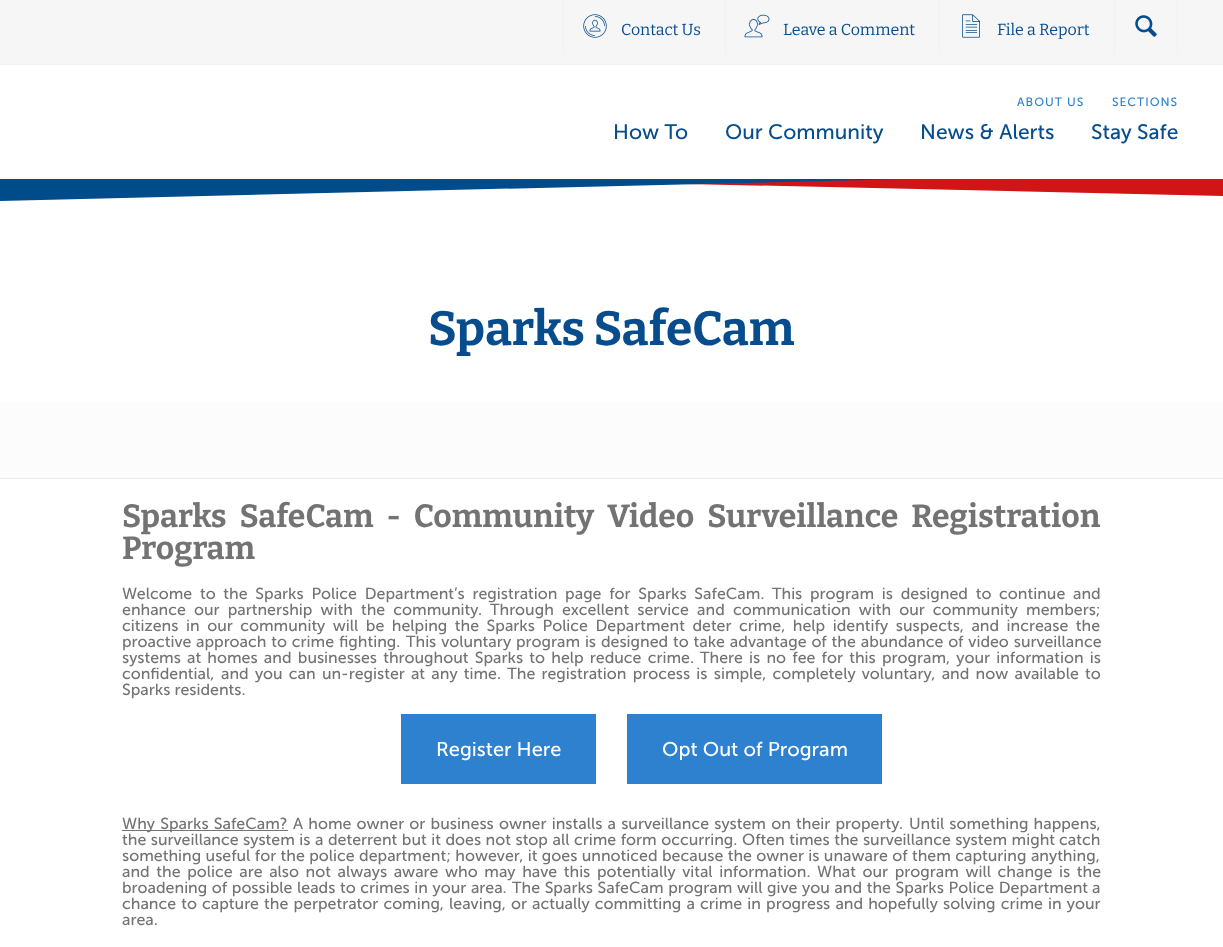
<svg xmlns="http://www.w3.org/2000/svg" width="1223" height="947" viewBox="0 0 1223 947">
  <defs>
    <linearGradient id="g1" gradientUnits="userSpaceOnUse" x1="612" y1="179" x2="612" y2="478"><stop offset="0" stop-color="#fefefe"/><stop offset="1" stop-color="#fcfcfc"/></linearGradient>
  </defs>
  <rect width="100%" height="100%" fill="#fff"/>
  <path d="M0 0h1223v64H0z" fill="#f6f6f6"/>
  <path d="M0 64h1223v1H0z" fill="#f1f1f1"/>
  <path d="M563 0h1v53H563z" fill="#f1f1f1"/>
  <image x="583" y="14" width="24" height="24" href="img/1.png"/>
  <path d="M725 0h1v53H725z" fill="#f1f1f1"/>
  <image x="744" y="14" width="26" height="24" href="img/2.png"/>
  <path d="M939 0h1v53H939z" fill="#f1f1f1"/>
  <image x="962" y="14" width="18" height="24" href="img/3.png"/>
  <path d="M1177 0h1v53H1177z" fill="#f1f1f1"/>
  <path d="M1114 0h1v53H1114z" fill="#f1f1f1"/>
  <image x="1135" y="15" width="22" height="22" href="img/4.png"/>
  <path d="M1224 196L468 179H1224Z" fill="#d11416"/>
  <path d="M0 201L904 179H0Z" fill="#004c8b"/>
  <path d="M0 403h1223v75H0z" fill="url(#g1)"/>
  <path d="M0 478h1223v1H0z" fill="#eaeaea"/>
  <path d="M401 714h195v70H401z" fill="#2e81ce"/>
  <path d="M627 714h255v70H627z" fill="#2e81ce"/>
  <path d="M122 830h166v1H122z" fill="#737373"/>
  <g font-family="Bitter" font-size="16" fill="#074d8d">
    <text x="621" y="35">Contact Us</text>
    <text x="783" y="35">Leave a Comment</text>
    <text x="997" y="35">File a Report</text>
  </g>
  <g font-family="'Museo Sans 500'" font-size="12" letter-spacing="1" fill="#2e81ce">
    <text x="1017" y="106">ABOUT US</text>
    <text x="1112" y="106">SECTIONS</text>
  </g>
  <g font-family="'Museo Sans 500'" font-size="21" fill="#074d8d">
    <text x="613" y="139">How To</text>
    <text x="725" y="139">Our Community</text>
    <text x="920" y="139">News &amp; Alerts</text>
    <text x="1091" y="139">Stay Safe</text>
  </g>
  <text x="428" y="345" font-family="Bitter" font-size="48" font-weight="bold" fill="#074d8d">Sparks SafeCam</text>
  <g font-family="Bitter" font-size="32" font-weight="bold" fill="#737373">
    <text x="122" y="527" word-spacing="7.25">Sparks SafeCam - Community Video Surveillance Registration</text>
    <text x="122" y="559">Program</text>
  </g>
  <g font-family="'Museo Sans 500'" font-size="16" fill="#737373">
    <text x="122" y="599" word-spacing="3.6">Welcome to the Sparks Police Department’s registration page for Sparks SafeCam.</text>
    <text x="772" y="599" word-spacing="3.6">This program is designed to continue and</text>
    <text x="122" y="615" word-spacing="4">enhance our partnership with the community.</text>
    <text x="490" y="615" word-spacing="4">Through excellent service and communication with our community members;</text>
    <text x="122" y="631">citizens</text>
    <text x="186" y="631" word-spacing="3.4">in our community will be helping the Sparks Police Department deter crime, help identify suspects, and increase the</text>
    <text x="122" y="647">proactive</text>
    <text x="196" y="647" word-spacing="0.75">approach to crime fighting.</text>
    <text x="406" y="647" word-spacing="0.75">This voluntary program is designed to take advantage of the abundance of video surveillance</text>
    <text x="122" y="663">systems</text>
    <text x="187" y="663" word-spacing="2.1">at homes and businesses throughout Sparks to help reduce crime.</text>
    <text x="700" y="663" word-spacing="2.1">There is no fee for this program, your information is</text>
    <text x="122" y="679">confidential,</text>
    <text x="221" y="679" word-spacing="2.1">and you can un-register at any time. The registration process is simple, completely voluntary, and now available to</text>
    <text x="122" y="695">Sparks residents.</text>
  </g>
  <g font-family="'Museo Sans 500'" font-size="20" fill="#fff">
    <text x="436" y="756">Register Here</text>
    <text x="662" y="756">Opt Out of Program</text>
  </g>
  <g font-family="'Museo Sans 500'" font-size="16" fill="#737373">
    <text x="122" y="829" word-spacing="1.1">Why Sparks SafeCam?</text>
    <text x="293" y="829" word-spacing="1.1">A home owner or business owner installs a surveillance system on their property.</text>
    <text x="909" y="829" word-spacing="1">Until something happens,</text>
    <text x="122" y="845" word-spacing="0.4">the surveillance system is a deterrent but it does not stop all crime form occurring.</text>
    <text x="742" y="845" word-spacing="0.4">Often times the surveillance system might</text>
    <text x="1059" y="845">catch</text>
    <text x="122" y="861" word-spacing="0.3">something useful for the police department; however, it goes unnoticed because the owner is unaware of them capturing anything,</text>
    <text x="122" y="877" word-spacing="2.5">and the police are also not always aware who may have this potentially vital information.</text>
    <text x="817" y="877" word-spacing="2.5">What our program will change is the</text>
    <text x="122" y="893" word-spacing="0.5">broadening of possible leads to crimes in your area.</text>
    <text x="512" y="893" word-spacing="0.5">The Sparks SafeCam program will give you and the Sparks Police Department</text>
    <text x="1092" y="893">a</text>
    <text x="122" y="909" word-spacing="1">chance to capture the perpetrator coming, leaving, or actually committing a crime in progress and hopefully solving crime in your</text>
    <text x="122" y="925">area.</text>
  </g>
</svg>
